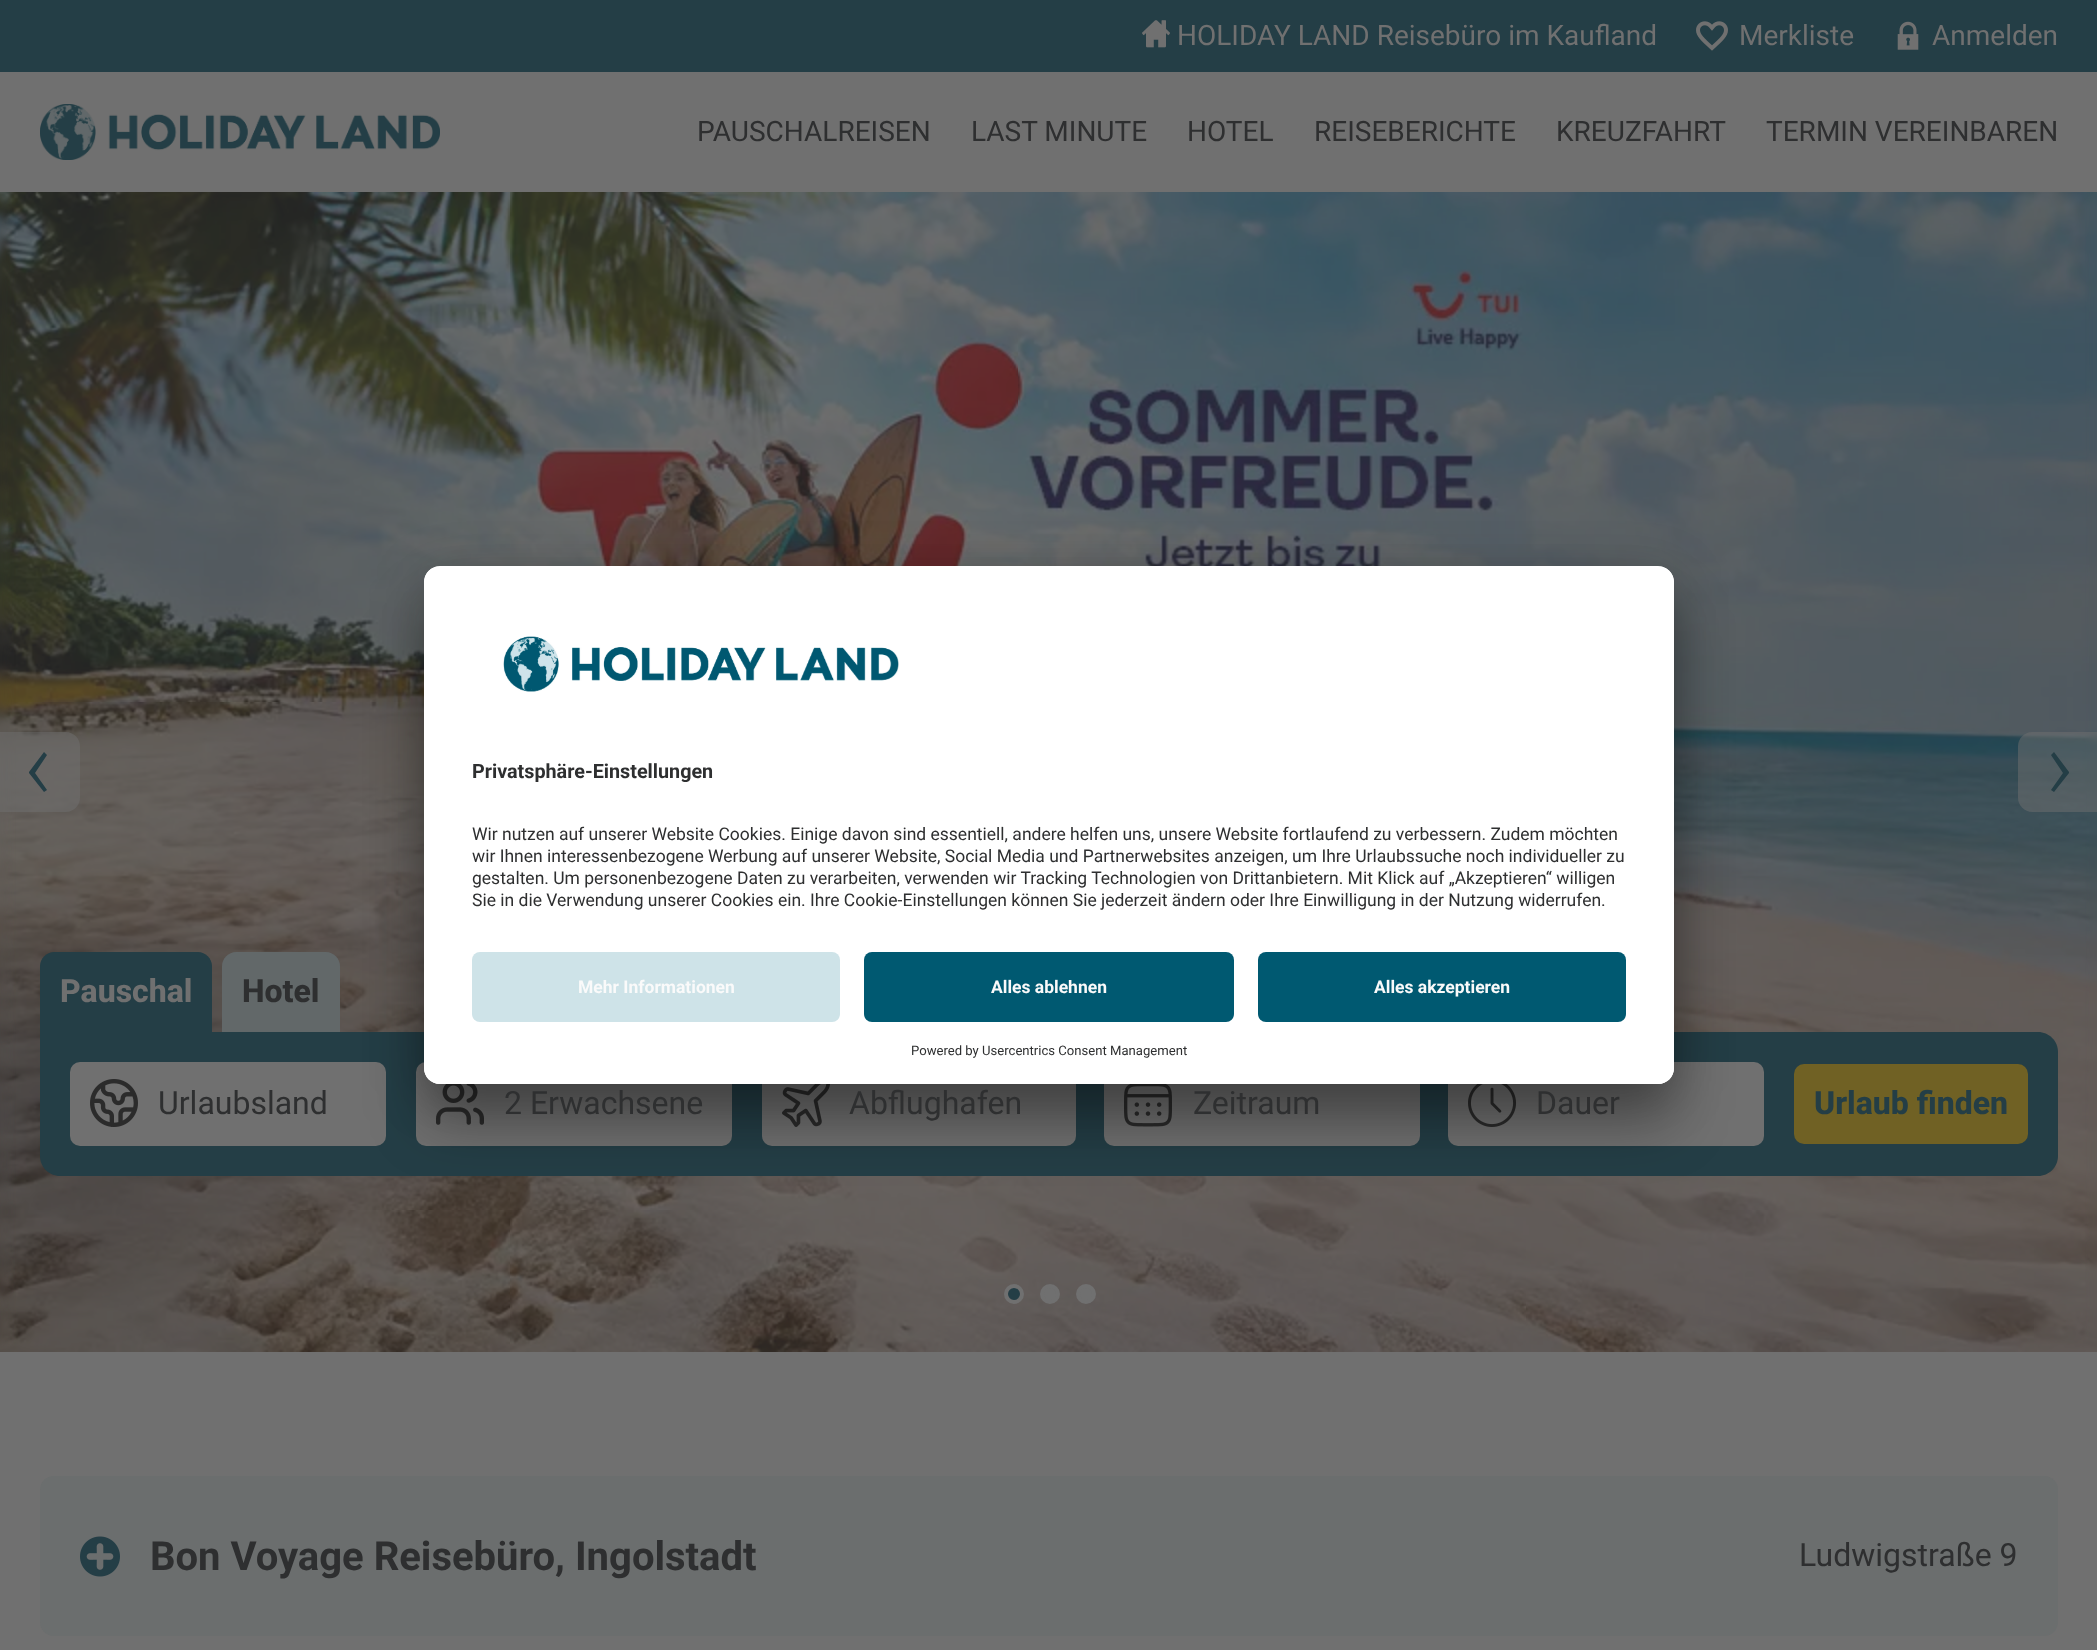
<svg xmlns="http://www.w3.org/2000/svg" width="2097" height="1650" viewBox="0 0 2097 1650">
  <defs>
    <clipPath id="clip1"><rect x="424" y="566" width="1250" height="518" rx="16"/></clipPath>
    <clipPath id="clip2"><path d="M440 566H1658C1667 566 1674 573 1674 582V936H424V582C424 573 431 566 440 566Z"/></clipPath>
  </defs>
  <rect width="100%" height="100%" fill="#707070"/>
  <path d="M0 0h2097v72H0z" fill="#243e46"/>
  <image x="1142" y="20" width="28" height="28" href="img/1.png"/>
  <image x="1696" y="21" width="32" height="30" href="img/2.png"/>
  <image x="1897" y="21" width="22" height="29" href="img/3.png"/>
  <image x="40" y="104" width="400" height="56" href="img/4.png"/>
  <image x="0" y="192" width="2097" height="1160" href="img/5.png"/>
  <image x="0" y="192" width="16" height="1156" href="img/6.png"/>
  <image x="2085" y="192" width="12" height="1145" href="img/7.png"/>
  <path d="M0 732H66C73.5 732 80 738.5 80 746V798C80 805.5 73.5 812 66 812H0Z" fill="#70707080"/>
  <path d="M29 773L44 792L47 790L35 773L47 755L44 752L29 772Z" fill="#243e46"/>
  <path d="M2032 732H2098V812H2032C2024.5 812 2018 805.5 2018 798V746C2018 738.5 2024.5 732 2032 732Z" fill="#70707080"/>
  <path d="M2069 772L2054 752L2051 755L2063 773L2051 790L2054 792L2069 773Z" fill="#243e46"/>
  <circle cx="1014" cy="1294" r="8" fill="#243e46" stroke="#707070" stroke-width="4"/>
  <circle cx="1050" cy="1294" r="8" fill="#707070" stroke="#707070" stroke-width="4"/>
  <circle cx="1086" cy="1294" r="8" fill="#707070" stroke="#707070" stroke-width="4"/>
  <path d="M236 952H326C333.5 952 340 958.5 340 966V1032H222V966C222 958.5 228.5 952 236 952Z" fill="#626869"/>
  <path d="M40 1032H2038C2049 1032 2058 1041 2058 1052V1156C2058 1167 2049 1176 2038 1176H60C49 1176 40 1167 40 1156Z" fill="#243e46"/>
  <rect x="70" y="1062" width="316" height="84" rx="10" fill="#707070"/>
  <rect x="416" y="1062" width="316" height="84" rx="10" fill="#707070"/>
  <image x="436" y="1084" width="48" height="41" href="img/10.png"/>
  <rect x="762" y="1062" width="314" height="84" rx="10" fill="#707070"/>
  <image x="782" y="1084" width="48" height="43" href="img/11.png"/>
  <rect x="1104" y="1062" width="316" height="84" rx="10" fill="#707070"/>
  <image x="1124" y="1084" width="48" height="43" href="img/12.png"/>
  <rect x="1448" y="1062" width="316" height="84" rx="10" fill="#707070"/>
  <image x="1468" y="1084" width="49" height="43" href="img/13.png"/>
  <rect x="424" y="606" width="1250" height="518" rx="16" fill="#0000004d" filter="blur(28px)"/>
  <rect x="424" y="576" width="1250" height="518" rx="16" fill="#00000038" filter="blur(26px)"/>
  <rect x="424" y="566" width="1250" height="518" rx="16" fill="#fff"/>
  <g clip-path="url(#clip1)">
    <g clip-path="url(#clip2)">
      <path d="M424 568h1250v368H424z" fill="#fff"/>
    </g>
  </g>
  <image x="503" y="636" width="396" height="56" href="img/8.png"/>
  <path d="M424 936H1674V1068C1674 1077 1667 1084 1658 1084H440C431 1084 424 1077 424 1068Z" fill="#fff"/>
  <rect x="472" y="952" width="368" height="70" rx="8" fill="#cee3e8"/>
  <rect x="864" y="952" width="370" height="70" rx="8" fill="#005971"/>
  <rect x="1258" y="952" width="368" height="70" rx="8" fill="#005971"/>
  <path d="M54 952H198C205.5 952 212 958.5 212 966V1032H40V966C40 958.5 46.5 952 54 952Z" fill="#243e46"/>
  <image x="90" y="1079" width="48" height="48" href="img/9.png"/>
  <rect x="1794" y="1064" width="234" height="80" rx="10" fill="#706124"/>
  <rect x="40" y="1476" width="2018" height="160" rx="14" fill="#6b6e6e"/>
  <image x="80" y="1536" width="40" height="41" href="img/14.png"/>
  <g font-family="Roboto" font-size="28" fill="#707070">
    <text x="1177" y="45">HOLIDAY LAND Reisebüro im Kaufland</text>
    <text x="1739" y="45">Merkliste</text>
    <text x="1932" y="45">Anmelden</text>
  </g>
  <g font-family="Roboto" font-size="28" fill="#2e2f30">
    <text x="697" y="141">PAUSCHALREISEN</text>
    <text x="971" y="141">LAST MINUTE</text>
    <text x="1187" y="141">HOTEL</text>
    <text x="1314" y="141">REISEBERICHTE</text>
    <text x="1556" y="141">KREUZFAHRT</text>
    <text x="1766" y="141">TERMIN VEREINBAREN</text>
  </g>
  <text x="472" y="778" font-family="Roboto" font-size="19.75" font-weight="bold" fill="#2e2f30">Privatsphäre-Einstellungen</text>
  <g font-family="Roboto" font-size="17.5" fill="#2e2f30">
    <text x="472" y="840">Wir nutzen auf unserer Website Cookies. Einige davon sind essentiell, andere helfen uns, unsere Website fortlaufend zu verbessern. Zudem möchten</text>
    <text x="472" y="862">wir Ihnen interessenbezogene Werbung auf unserer Website, Social Media und Partnerwebsites anzeigen, um Ihre Urlaubssuche noch individueller zu</text>
    <text x="472" y="884">gestalten. Um personenbezogene Daten zu verarbeiten, verwenden wir Tracking Technologien von Drittanbietern. Mit Klick auf „Akzeptieren“ willigen</text>
    <text x="472" y="906">Sie in die Verwendung unserer Cookies ein. Ihre Cookie-Einstellungen können Sie jederzeit ändern oder Ihre Einwilligung in der Nutzung widerrufen.</text>
  </g>
  <g font-family="Roboto" font-size="17.5" font-weight="bold" fill="#fafafa">
    <text x="578" y="993">Mehr Informationen</text>
    <text x="991" y="993">Alles ablehnen</text>
    <text x="1374" y="993">Alles akzeptieren</text>
  </g>
  <text x="911" y="1055" font-family="Roboto" font-size="13.1" fill="#2e2f30">Powered by Usercentrics Consent Management</text>
  <text x="60" y="1002" font-family="Roboto" font-size="32" font-weight="800" fill="#707070">Pauschal</text>
  <text x="242" y="1002" font-family="Roboto" font-size="32" font-weight="800" fill="#2e2f30">Hotel</text>
  <g font-family="Roboto" font-size="32" fill="#2e2f30">
    <text x="158" y="1114">Urlaubsland</text>
    <text x="504" y="1114">2 Erwachsene</text>
    <text x="849" y="1114">Abflughafen</text>
    <text x="1193" y="1114">Zeitraum</text>
    <text x="1536" y="1114">Dauer</text>
  </g>
  <text x="1814" y="1114" font-family="Roboto" font-size="32" font-weight="800" fill="#243e46">Urlaub finden</text>
  <text x="150" y="1570" font-family="Roboto" font-size="40" font-weight="bold" fill="#2e2f30">Bon Voyage Reisebüro, Ingolstadt</text>
  <text x="1799" y="1566" font-family="Roboto" font-size="32" fill="#2e2f30">Ludwigstraße 9</text>
</svg>
